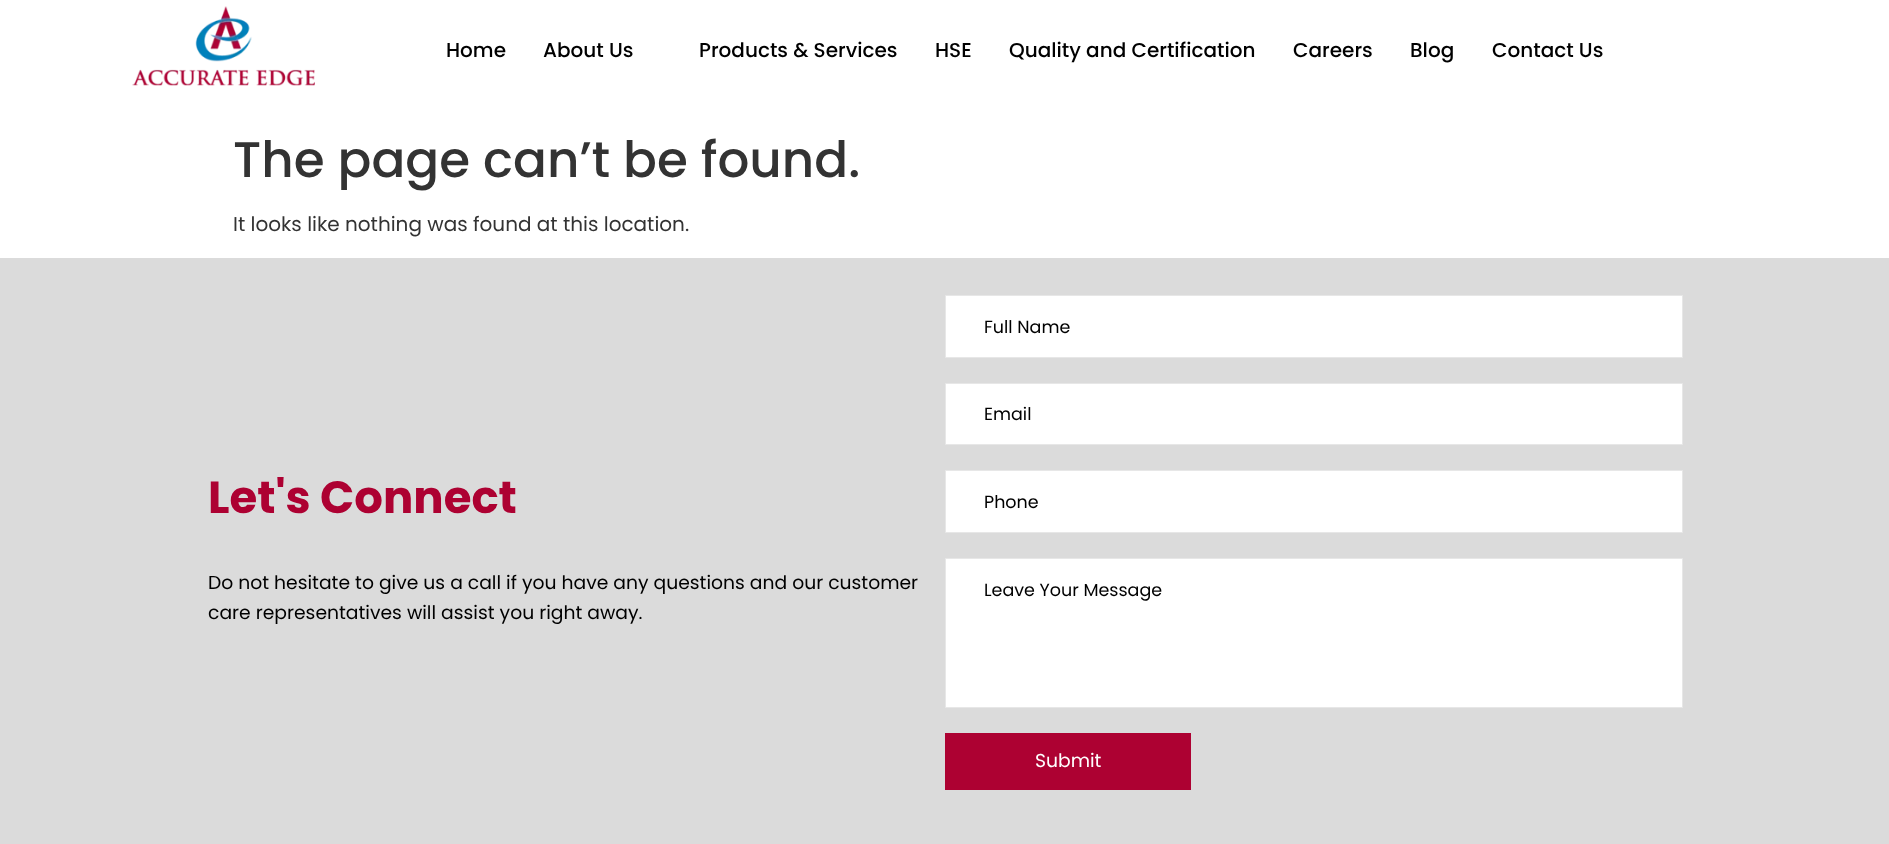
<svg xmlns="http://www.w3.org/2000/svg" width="1889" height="844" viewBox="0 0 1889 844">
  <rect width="100%" height="100%" fill="#fff"/>
  <image x="132" y="6" width="183" height="80" href="img/1.png"/>
  <path d="M0 258h1889v586H0z" fill="#dbdbdb"/>
  <path d="M945.5 295.5h737v62H945.5z" fill="#fff" stroke="#e7e7e7"/>
  <path d="M945.5 383.5h737v61H945.5z" fill="#fff" stroke="#e7e7e7"/>
  <path d="M945.5 470.5h737v62H945.5z" fill="#fff" stroke="#e7e7e7"/>
  <path d="M945.5 558.5h737v149H945.5z" fill="#fff" stroke="#e7e7e7"/>
  <path d="M945 733h246v57H945z" fill="#ad0132"/>
  <g font-family="Poppins" font-size="20" font-weight="500" fill="#000">
    <text x="446" y="57">Home</text>
    <text x="543" y="57">About Us</text>
    <text x="699" y="57">Products &amp; Services</text>
    <text x="935" y="57">HSE</text>
    <text x="1009" y="57">Quality and Certification</text>
    <text x="1293" y="57">Careers</text>
    <text x="1410" y="57">Blog</text>
    <text x="1492" y="57">Contact Us</text>
  </g>
  <text x="233" y="177" font-family="Poppins" font-size="50" font-weight="500" fill="#333">The page can’t be found.</text>
  <text x="233" y="231" font-family="Poppins" font-size="20" fill="#333">It looks like nothing was found at this location.</text>
  <text x="208" y="513" font-family="Poppins" font-size="45" font-weight="bold" fill="#ad0132">Let's Connect</text>
  <g font-family="Poppins" font-size="18.75" fill="#000">
    <text x="208" y="589">Do not hesitate to give us a call if you have any questions and our customer</text>
    <text x="208" y="619">care representatives will assist you right away.</text>
  </g>
  <g font-family="Poppins" font-size="17.5" fill="#000">
    <text x="984" y="333">Full Name</text>
    <text x="984" y="420">Email</text>
    <text x="984" y="508">Phone</text>
    <text x="984" y="596">Leave Your Message</text>
  </g>
  <text x="1035" y="767" font-family="Poppins" font-size="18.75" fill="#fff">Submit</text>
</svg>
